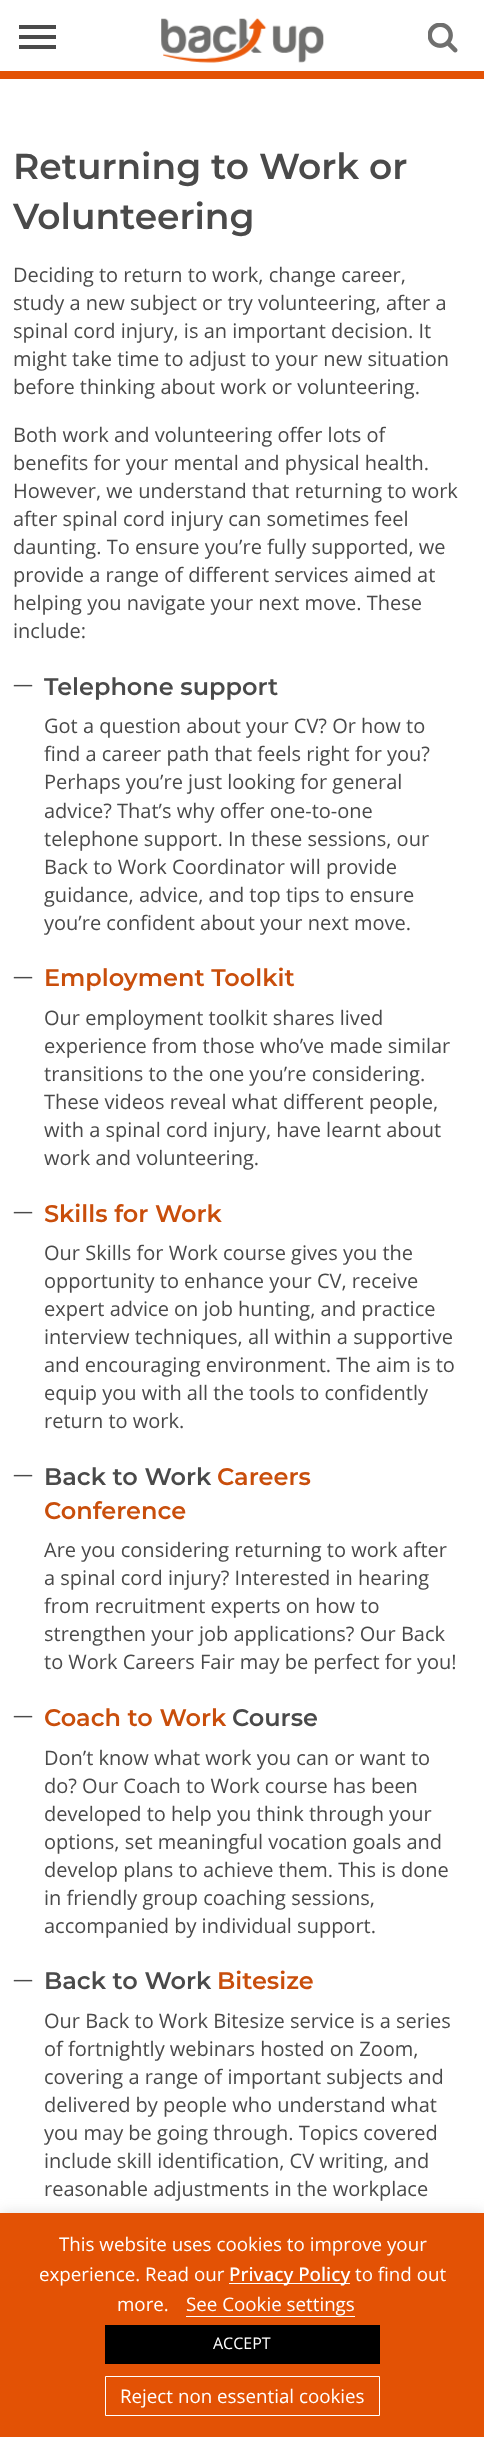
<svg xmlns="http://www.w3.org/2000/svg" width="484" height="2437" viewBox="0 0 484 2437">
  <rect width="100%" height="100%" fill="#fff"/>
  <path d="M0 71h484v8H0z" fill="#e35205"/>
  <path d="M19 45h37v4H19z" fill="#4a4a4a"/>
  <path d="M19 35h37v4H19z" fill="#4a4a4a"/>
  <path d="M19 25h37v4H19z" fill="#4a4a4a"/>
  <image x="161" y="18" width="163" height="45" href="img/1.png"/>
  <image x="428" y="23" width="30" height="30" href="img/2.png"/>
  <path d="M0 2211h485v225H0z" fill="#acabab4d" filter="blur(6px)"/>
  <path d="M0 2213h484v224H0z" fill="#e35205"/>
  <path d="M229 2283h121v1H229z" fill="#fff"/>
  <path d="M186 2316h169v1H186z" fill="#fff"/>
  <path d="M105 2325h275v39H105z" fill="#000"/>
  <path d="M105.5 2376.5h274v39H105.5z" fill="none" stroke="#fff"/>
  <g font-family="Montserrat" font-size="36" font-weight="600" fill="#4a4a4a">
    <text x="13" y="179">Returning to Work or</text>
    <text x="13" y="229">Volunteering</text>
  </g>
  <g font-family="Open Sans" font-size="20" fill="#4a4a4a">
    <text x="13" y="282">Deciding to return to work, change career,</text>
    <text x="13" y="310">study a new subject or try volunteering, after a</text>
    <text x="13" y="338">spinal cord injury, is an important decision. It</text>
    <text x="13" y="366">might take time to adjust to your new situation</text>
    <text x="13" y="394">before thinking about work or volunteering.</text>
    <text x="13" y="442">Both work and volunteering offer lots of</text>
    <text x="13" y="470">benefits for your mental and physical health.</text>
    <text x="13" y="498">However, we understand that returning to work</text>
    <text x="13" y="526">after spinal cord injury can sometimes feel</text>
    <text x="13" y="554">daunting. To ensure you’re fully supported, we</text>
    <text x="13" y="582">provide a range of different services aimed at</text>
    <text x="13" y="610">helping you navigate your next move. These</text>
    <text x="13" y="638">include:</text>
    <text x="13" y="691">—</text>
  </g>
  <text x="44" y="695" font-family="Montserrat" font-size="24" font-weight="600" fill="#4a4a4a">Telephone support</text>
  <g font-family="Open Sans" font-size="20" fill="#4a4a4a">
    <text x="44" y="733">Got a question about your CV? Or how to</text>
    <text x="44" y="761">find a career path that feels right for you?</text>
    <text x="44" y="789">Perhaps you’re just looking for general</text>
    <text x="44" y="818">advice? That’s why offer one-to-one</text>
    <text x="44" y="846">telephone support. In these sessions, our</text>
    <text x="44" y="874">Back to Work Coordinator will provide</text>
    <text x="44" y="902">guidance, advice, and top tips to ensure</text>
    <text x="44" y="930">you’re confident about your next move.</text>
    <text x="13" y="983">—</text>
  </g>
  <text x="44" y="986" font-family="Montserrat" font-size="24" font-weight="600" fill="#c94e0b">Employment Toolkit</text>
  <g font-family="Open Sans" font-size="20" fill="#4a4a4a">
    <text x="44" y="1025">Our employment toolkit shares lived</text>
    <text x="44" y="1053">experience from those who’ve made similar</text>
    <text x="44" y="1081">transitions to the one you’re considering.</text>
    <text x="44" y="1109">These videos reveal what different people,</text>
    <text x="44" y="1137">with a spinal cord injury, have learnt about</text>
    <text x="44" y="1165">work and volunteering.</text>
    <text x="13" y="1218">—</text>
  </g>
  <text x="44" y="1222" font-family="Montserrat" font-size="24" font-weight="600" fill="#c94e0b">Skills for Work</text>
  <g font-family="Open Sans" font-size="20" fill="#4a4a4a">
    <text x="44" y="1260">Our Skills for Work course gives you the</text>
    <text x="44" y="1288">opportunity to enhance your CV, receive</text>
    <text x="44" y="1316">expert advice on job hunting, and practice</text>
    <text x="44" y="1344">interview techniques, all within a supportive</text>
    <text x="44" y="1372">and encouraging environment. The aim is to</text>
    <text x="44" y="1400">equip you with all the tools to confidently</text>
    <text x="44" y="1428">return to work.</text>
    <text x="13" y="1481">—</text>
  </g>
  <text x="44" y="1485" font-family="Montserrat" font-size="24" font-weight="600" fill="#4a4a4a">Back to Work</text>
  <g font-family="Montserrat" font-size="24" font-weight="600" fill="#c94e0b">
    <text x="217" y="1485">Careers</text>
    <text x="44" y="1519">Conference</text>
  </g>
  <g font-family="Open Sans" font-size="20" fill="#4a4a4a">
    <text x="44" y="1557">Are you considering returning to work after</text>
    <text x="44" y="1585">a spinal cord injury? Interested in hearing</text>
    <text x="44" y="1613">from recruitment experts on how to</text>
    <text x="44" y="1641">strengthen your job applications? Our Back</text>
    <text x="44" y="1669">to Work Careers Fair may be perfect for you!</text>
    <text x="13" y="1722">—</text>
  </g>
  <text x="44" y="1726" font-family="Montserrat" font-size="24" font-weight="600" fill="#c94e0b">Coach to Work</text>
  <text x="232" y="1726" font-family="Montserrat" font-size="24" font-weight="600" fill="#4a4a4a">Course</text>
  <g font-family="Open Sans" font-size="20" fill="#4a4a4a">
    <text x="44" y="1765">Don’t know what work you can or want to</text>
    <text x="44" y="1793">do? Our Coach to Work course has been</text>
    <text x="44" y="1821">developed to help you think through your</text>
    <text x="44" y="1849">options, set meaningful vocation goals and</text>
    <text x="44" y="1877">develop plans to achieve them. This is done</text>
    <text x="44" y="1905">in friendly group coaching sessions,</text>
    <text x="44" y="1933">accompanied by individual support.</text>
    <text x="13" y="1986">—</text>
  </g>
  <text x="44" y="1989" font-family="Montserrat" font-size="24" font-weight="600" fill="#4a4a4a">Back to Work</text>
  <text x="217" y="1989" font-family="Montserrat" font-size="24" font-weight="600" fill="#c94e0b">Bitesize</text>
  <g font-family="Open Sans" font-size="20" fill="#4a4a4a">
    <text x="44" y="2028">Our Back to Work Bitesize service is a series</text>
    <text x="44" y="2056">of fortnightly webinars hosted on Zoom,</text>
    <text x="44" y="2084">covering a range of important subjects and</text>
    <text x="44" y="2112">delivered by people who understand what</text>
    <text x="44" y="2140">you may be going through. Topics covered</text>
    <text x="44" y="2168">include skill identification, CV writing, and</text>
    <text x="44" y="2196">reasonable adjustments in the workplace</text>
  </g>
  <g font-family="Open Sans" font-size="18.75" fill="#fff">
    <text x="59" y="2251">This website uses cookies to improve your</text>
    <text x="39" y="2281">experience. Read our</text>
  </g>
  <text x="229" y="2281" font-family="Open Sans" font-size="18.75" font-weight="500" fill="#fff">Privacy Policy</text>
  <g font-family="Open Sans" font-size="18.75" fill="#fff">
    <text x="355" y="2281">to find out</text>
    <text x="117" y="2311">more.</text>
    <text x="186" y="2311">See Cookie settings</text>
  </g>
  <text x="213" y="2349" font-family="Open Sans" font-size="16" fill="#fff">ACCEPT</text>
  <text x="120" y="2403" font-family="Open Sans" font-size="18.75" fill="#fff">Reject non essential cookies</text>
</svg>
